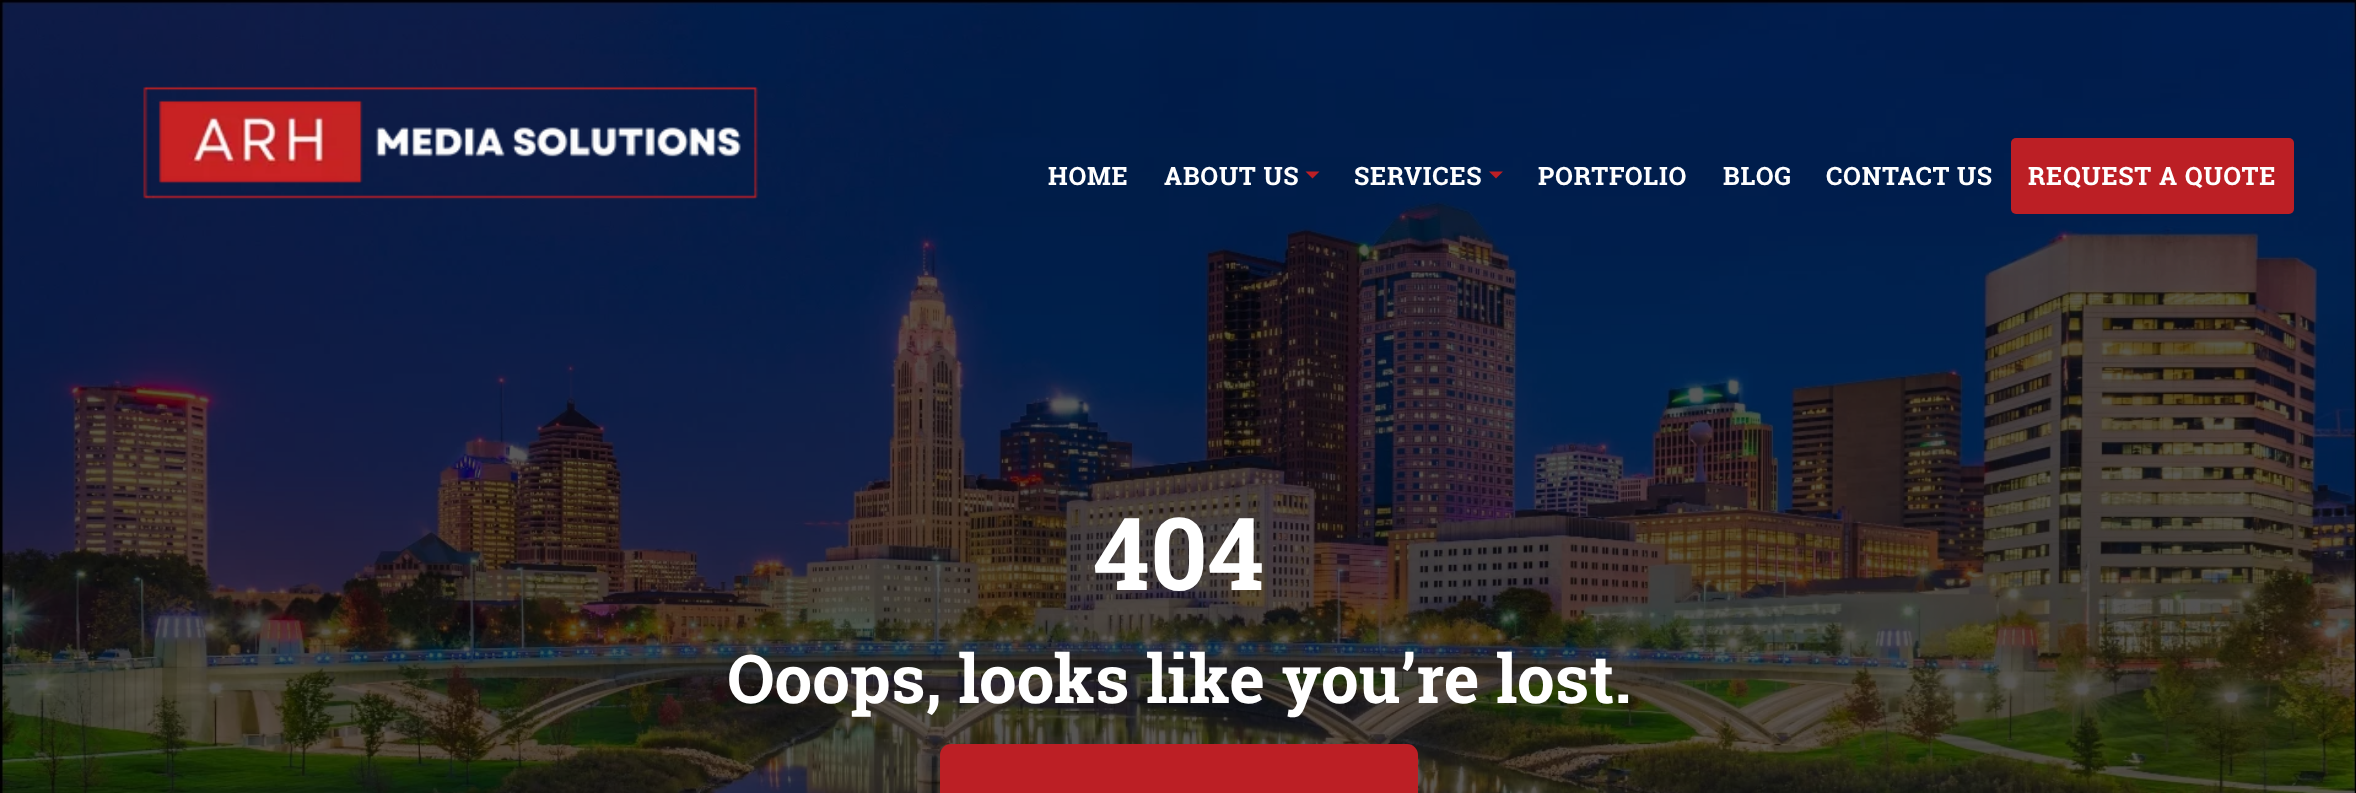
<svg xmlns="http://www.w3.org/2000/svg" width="2356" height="793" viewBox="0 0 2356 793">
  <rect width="100%" height="100%" fill="#fff"/>
  <image x="0" y="0" width="2356" height="793" href="img/2.png"/>
  <image x="143" y="86" width="616" height="114" href="img/1.png"/>
  <path d="M1305.5 171.5H1319.5L1312.5 178.5Z" fill="#bc1f25"/>
  <path d="M1489 171.5H1503L1496 178.5Z" fill="#bc1f25"/>
  <rect x="2011" y="138" width="283" height="76" rx="5" fill="#bc1f25"/>
  <rect x="941" y="745" width="476" height="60" rx="10" fill="#bc1f25" stroke="#bc1f25" stroke-width="2"/>
  <g font-family="Roboto Slab" font-size="25.25" font-weight="bold" letter-spacing="0.75" fill="#fff">
    <text x="1048" y="185">HOME</text>
    <text x="1164" y="185">ABOUT US</text>
    <text x="1354" y="185">SERVICES</text>
    <text x="1538" y="185">PORTFOLIO</text>
    <text x="1723" y="185">BLOG</text>
    <text x="1826" y="185">CONTACT US</text>
    <text x="2028" y="185">REQUEST A QUOTE</text>
  </g>
  <text x="1093" y="590" font-family="Roboto Slab" font-size="101" font-weight="bold" fill="#fff">404</text>
  <text x="727" y="703" font-family="Roboto Slab" font-size="67.25" font-weight="bold" fill="#fff">Ooops, looks like you’re lost.</text>
</svg>
